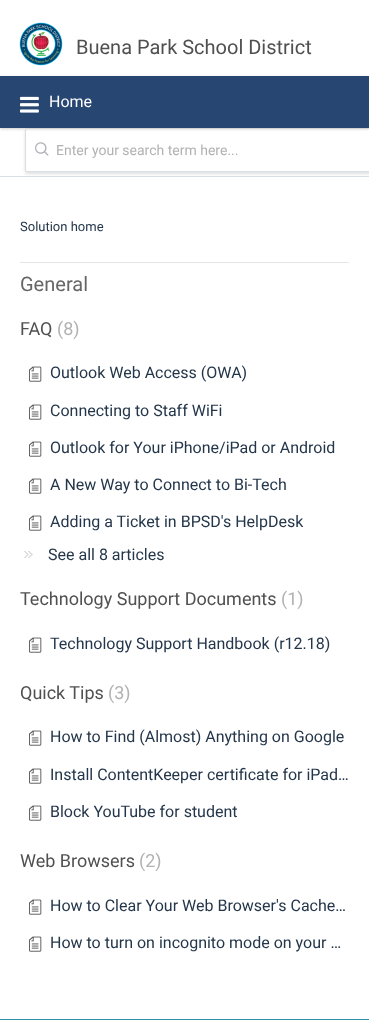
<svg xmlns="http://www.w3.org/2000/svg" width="369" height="1036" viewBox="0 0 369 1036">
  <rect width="100%" height="100%" fill="#fff"/>
  <image x="19" y="22" width="44" height="44" href="img/1.png"/>
  <path d="M0 176h369v1H0z" fill="#dadfe3"/>
  <rect x="25" y="130" width="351" height="44" rx="2" fill="#0000001f" filter="blur(1.5px)"/>
  <rect x="25.5" y="128.5" width="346" height="43" rx="1.5" fill="#fff" stroke="#dadfe3"/>
  <path d="M0 77h369v52H0z" fill="#ccc" filter="blur(1.5px)"/>
  <path d="M0 76h369v52H0z" fill="#274672"/>
  <image x="20" y="96" width="19" height="17" href="img/2.png"/>
  <image x="35" y="142" width="14" height="14" href="img/3.png"/>
  <path d="M20 262h329v1H20z" fill="#e5e5e5"/>
  <image x="29" y="366" width="13" height="16" href="img/4.png"/>
  <image x="29" y="404" width="13" height="16" href="img/4.png"/>
  <image x="29" y="441" width="13" height="16" href="img/4.png"/>
  <image x="29" y="478" width="13" height="16" href="img/4.png"/>
  <image x="29" y="515" width="13" height="16" href="img/4.png"/>
  <image x="24" y="551" width="9" height="7" href="img/5.png"/>
  <image x="29" y="637" width="13" height="16" href="img/4.png"/>
  <image x="29" y="730" width="13" height="16" href="img/4.png"/>
  <image x="29" y="768" width="13" height="16" href="img/4.png"/>
  <image x="29" y="805" width="13" height="16" href="img/4.png"/>
  <image x="29" y="899" width="13" height="16" href="img/4.png"/>
  <image x="29" y="936" width="13" height="16" href="img/4.png"/>
  <path d="M0 1019h369v1H0z" fill="#2d92a8"/>
  <text x="76" y="54" font-family="Roboto" font-size="20" fill="#505050">Buena Park School District</text>
  <text x="49" y="107" font-family="Roboto" font-size="16" fill="#fff">Home</text>
  <text x="56" y="155" font-family="Roboto" font-size="14" fill="#b2b2b2">Enter your search term here...</text>
  <text x="20" y="231" font-family="Roboto" font-size="13" fill="#24364a">Solution home</text>
  <text x="20" y="291" font-family="Roboto" font-size="20" fill="#666">General</text>
  <text x="20" y="335" font-family="Roboto" font-size="18" fill="#505050">FAQ</text>
  <text x="57" y="335" font-family="Roboto" font-size="18" fill="#b2b2b2">(8)</text>
  <g font-family="Roboto" font-size="16" fill="#24364a">
    <text x="50" y="378">Outlook Web Access (OWA)</text>
    <text x="50" y="416">Connecting to Staff WiFi</text>
    <text x="50" y="453">Outlook for Your iPhone/iPad or Android</text>
    <text x="50" y="490">A New Way to Connect to Bi-Tech</text>
    <text x="50" y="527">Adding a Ticket in BPSD's HelpDesk</text>
    <text x="48" y="560">See all 8 articles</text>
  </g>
  <text x="20" y="605" font-family="Roboto" font-size="18" fill="#505050">Technology Support Documents</text>
  <text x="281" y="605" font-family="Roboto" font-size="18" fill="#b2b2b2">(1)</text>
  <text x="50" y="649" font-family="Roboto" font-size="16" fill="#24364a">Technology Support Handbook (r12.18)</text>
  <text x="20" y="699" font-family="Roboto" font-size="18" fill="#505050">Quick Tips</text>
  <text x="108" y="699" font-family="Roboto" font-size="18" fill="#b2b2b2">(3)</text>
  <g font-family="Roboto" font-size="16" fill="#24364a">
    <text x="50" y="742">How to Find (Almost) Anything on Google</text>
    <text x="50" y="780">Install ContentKeeper certificate for iPad…</text>
    <text x="50" y="817">Block YouTube for student</text>
  </g>
  <text x="20" y="867" font-family="Roboto" font-size="18" fill="#505050">Web Browsers</text>
  <text x="139" y="867" font-family="Roboto" font-size="18" fill="#b2b2b2">(2)</text>
  <g font-family="Roboto" font-size="16" fill="#24364a">
    <text x="50" y="911">How to Clear Your Web Browser's Cache…</text>
    <text x="50" y="948">How to turn on incognito mode on your …</text>
  </g>
</svg>
